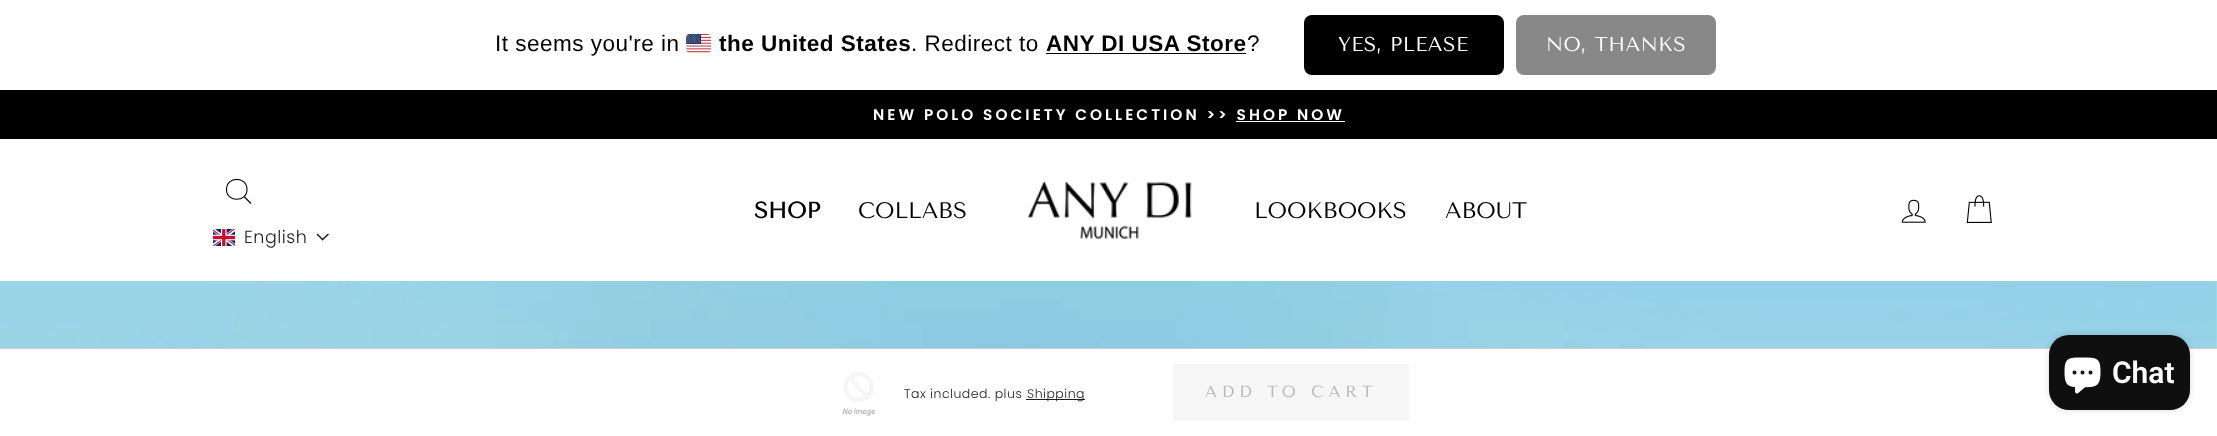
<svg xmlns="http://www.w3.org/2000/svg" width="2217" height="436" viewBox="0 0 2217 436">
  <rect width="100%" height="100%" fill="#fff"/>
  <image x="686" y="34" width="25" height="19" href="img/1.png"/>
  <path d="M1046 53h200v1H1046z" fill="#000"/>
  <rect x="1304" y="15" width="200" height="60" rx="8" fill="#000"/>
  <rect x="1516" y="15" width="200" height="60" rx="8" fill="#888"/>
  <path d="M0 90h2217v49H0z" fill="#000"/>
  <path d="M1236 121h109v1H1236z" fill="#fff"/>
  <image x="1027" y="181" width="165" height="58" href="img/2.png"/>
  <image x="1901" y="199" width="25" height="24" href="img/3.png"/>
  <image x="1966" y="195" width="26" height="28" href="img/4.png"/>
  <path d="M247 189.5C247 202.5 226.5 202.5 226.5 189.5C226.5 176 247 176 247 189.5ZM251 203.5L244 196.5" fill="none" stroke="#000" stroke-width="1.1"/>
  <image x="213" y="229" width="22" height="17" href="img/5.png"/>
  <path d="M328 233.5L329 234.5L322.5 240.5L321.5 239.5Z" fill="#1a1a1a"/>
  <path d="M317.5 233.5L323.5 239.5L322.5 240.5L316.5 234.5Z" fill="#1a1a1a"/>
  <image x="0" y="281" width="2217" height="67" href="img/6.png"/>
  <path d="M0 348h2217v1H0z" fill="#ccc"/>
  <image x="842" y="372" width="34" height="44" href="img/7.png"/>
  <path d="M1026 399h59v1H1026z" fill="#1d1d1d"/>
  <path d="M1173 364h236v57H1173z" fill="#f6f6f6"/>
  <rect x="2049" y="335" width="141" height="75" rx="20" fill="#00000026" filter="blur(3px)"/>
  <rect x="2049" y="335" width="141" height="75" rx="20" fill="#0f0f0f"/>
  <image x="2064" y="357" width="37" height="37" href="img/8.png"/>
  <text x="495" y="51" font-family="Liberation Sans" font-size="22.5" letter-spacing="0.5" fill="#000">It seems you're in</text>
  <text x="719" y="51" font-family="Liberation Sans" font-size="22.5" font-weight="bold" letter-spacing="0.5" fill="#000">the United States</text>
  <text x="911" y="51" font-family="Liberation Sans" font-size="22.5" letter-spacing="0.5" fill="#000">. Redirect to</text>
  <text x="1046" y="51" font-family="Liberation Sans" font-size="22.5" font-weight="bold" letter-spacing="0.5" fill="#000">ANY DI USA Store</text>
  <text x="1247" y="51" font-family="Liberation Sans" font-size="22.5" letter-spacing="0.5" fill="#000">?</text>
  <g font-family="Tenor Sans" font-size="20" letter-spacing="0.5" fill="#fff">
    <text x="1338" y="51">YES, PLEASE</text>
    <text x="1546" y="51">NO, THANKS</text>
  </g>
  <text x="873" y="120" font-family="Poppins" font-size="15.3" font-weight="600" letter-spacing="3.05" fill="#fff">NEW POLO SOCIETY COLLECTION &gt;&gt; SHOP NOW</text>
  <text x="754" y="218" font-family="Tenor Sans" font-size="22.5" font-weight="bold" fill="#000">SHOP</text>
  <g font-family="Tenor Sans" font-size="22.5" fill="#000">
    <text x="858" y="218">COLLABS</text>
    <text x="1254" y="218">LOOKBOOKS</text>
    <text x="1445" y="218">ABOUT</text>
  </g>
  <text x="244" y="243" font-family="Poppins" font-size="17.5" font-weight="300" letter-spacing="0.5" fill="#1d1d1d">English</text>
  <g font-family="Poppins" font-size="12.5" font-weight="300" letter-spacing="0.5" fill="#1d1d1d">
    <text x="904" y="398">Tax included. plus</text>
    <text x="1027" y="398">Shipping</text>
  </g>
  <text x="1205" y="397" font-family="Tenor Sans" font-size="16.25" letter-spacing="4.9" fill="#b6b6b6">ADD TO CART</text>
  <text x="2112" y="383" font-family="Roboto" font-size="30" font-weight="600" fill="#fff">Chat</text>
</svg>
